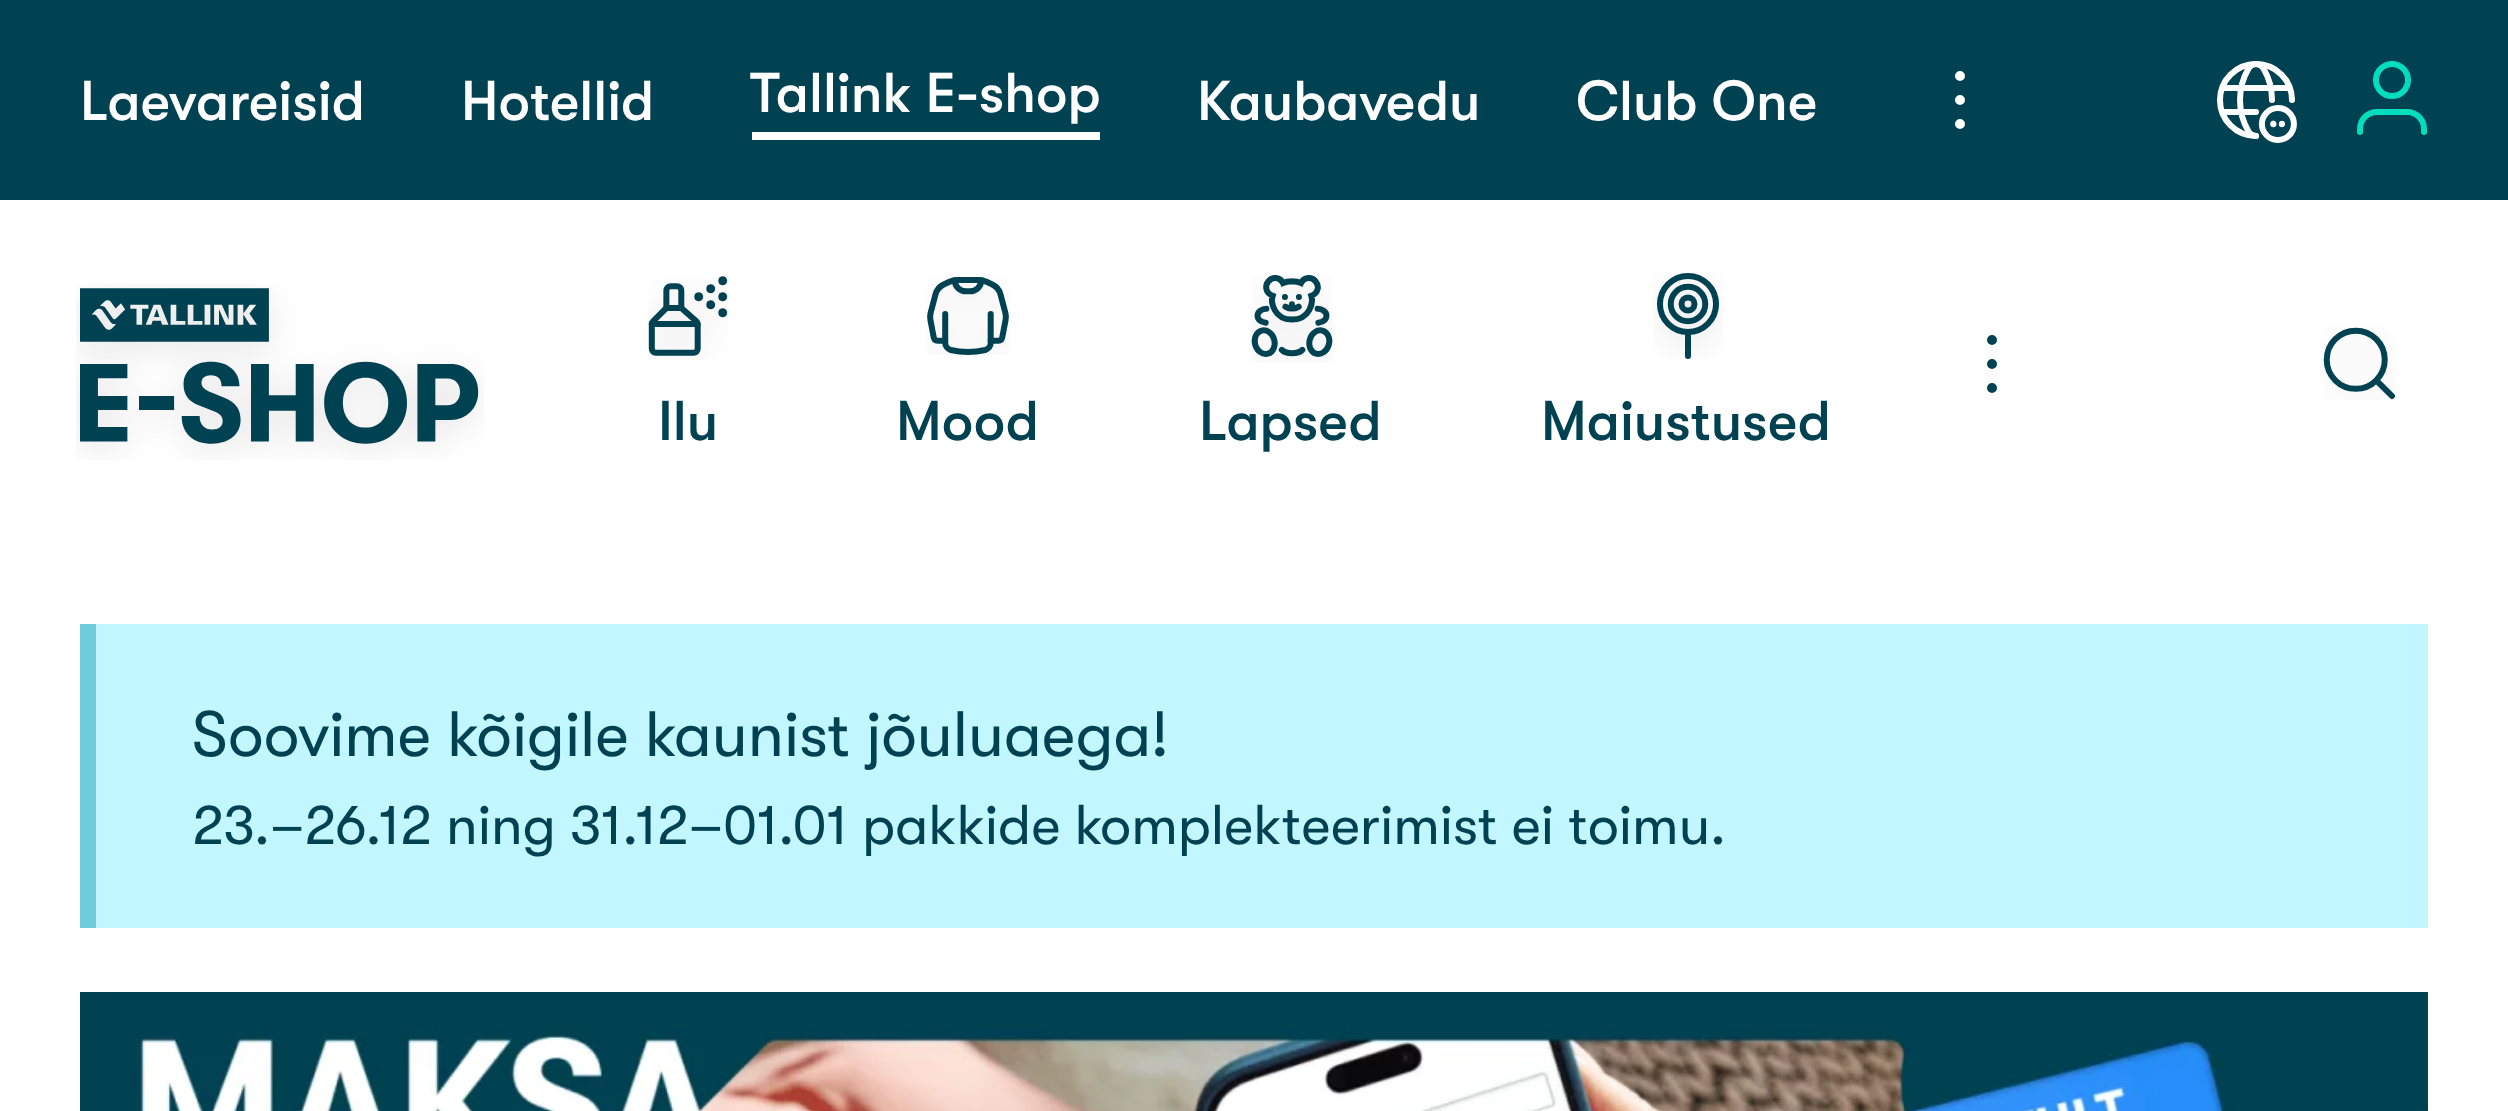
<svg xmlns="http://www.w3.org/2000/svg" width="2508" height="1111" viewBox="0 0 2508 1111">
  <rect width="100%" height="100%" fill="#fff"/>
  <path d="M0 0h2508v200H0z" fill="#004152"/>
  <path d="M752 132h348v8H752z" fill="#fff"/>
  <image x="1955" y="71" width="10" height="58" href="img/1.png"/>
  <image x="2217" y="61" width="80" height="82" href="img/2.png"/>
  <image x="2357" y="61" width="70" height="74" href="img/3.png"/>
  <image x="76" y="284" width="408" height="176" href="img/4.png"/>
  <image x="2323" y="327" width="73" height="73" href="img/5.png"/>
  <image x="1987" y="335" width="10" height="58" href="img/6.png"/>
  <image x="648" y="276" width="80" height="84" href="img/7.png"/>
  <image x="927" y="277" width="82" height="78" href="img/8.png"/>
  <image x="1251" y="275" width="82" height="88" href="img/9.png"/>
  <image x="1653" y="273" width="70" height="86" href="img/10.png"/>
  <path d="M96 624h2332v304H96z" fill="#c2f7ff"/>
  <path d="M80 624h16v304H80z" fill="#6ecbd9"/>
  <image x="80" y="992" width="2348" height="119" href="img/11.png"/>
  <g font-family="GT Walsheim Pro" font-size="56" font-weight="500" fill="#fff">
    <text x="80" y="120">Laevareisid</text>
    <text x="461" y="120">Hotellid</text>
    <text x="750" y="112">Tallink E-shop</text>
    <text x="1197" y="120">Kaubavedu</text>
    <text x="1576" y="120">Club One</text>
  </g>
  <g font-family="GT Walsheim Pro" font-size="56" font-weight="500" fill="#004152">
    <text x="658" y="440">Ilu</text>
    <text x="896" y="440">Mood</text>
    <text x="1199" y="440">Lapsed</text>
    <text x="1541" y="440">Maiustused</text>
  </g>
  <text x="192" y="756" font-family="GT Walsheim Pro" font-size="64" fill="#004152">Soovime kõigile kaunist jõuluaega!</text>
  <text x="192" y="844" font-family="'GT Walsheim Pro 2'" font-size="56" fill="#004152">23.–26.12 ning 31.12–01.01 pakkide komplekteerimist ei toimu.</text>
</svg>
